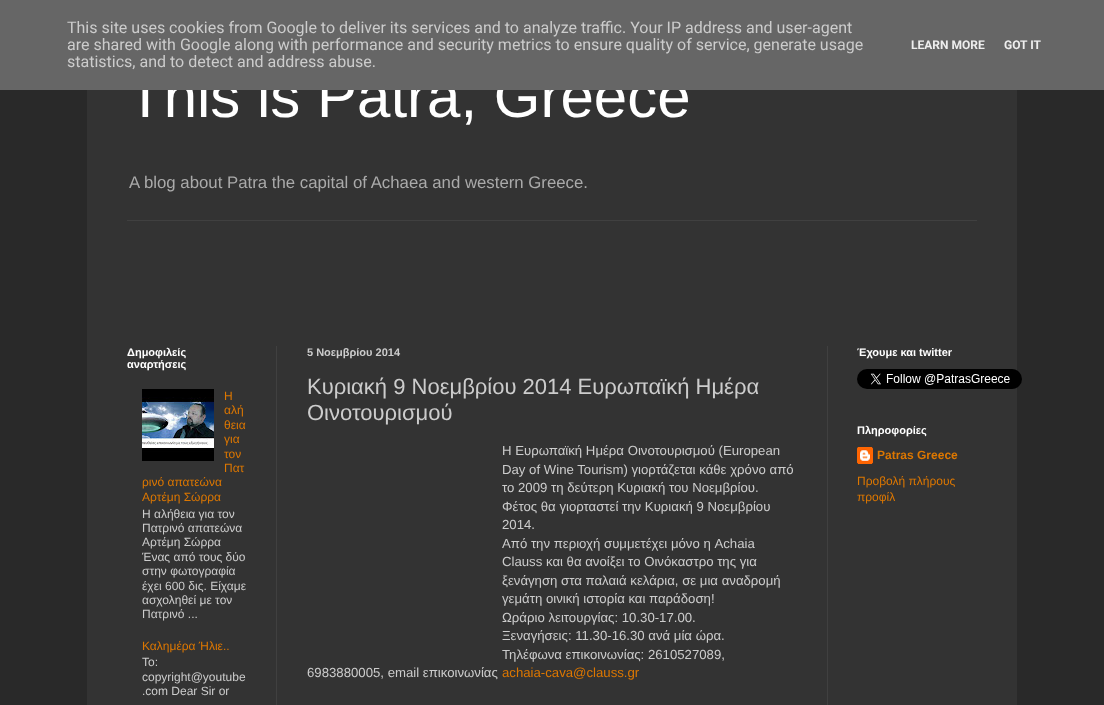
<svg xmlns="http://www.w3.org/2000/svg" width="1104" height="705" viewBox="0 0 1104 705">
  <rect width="100%" height="100%" fill="#292929"/>
  <path d="M87 90h930v615H87z" fill="#333"/>
  <path d="M127 220h850v1H127z" fill="#404040"/>
  <path d="M276 346h1v359H276z" fill="#404040"/>
  <path d="M827 346h1v359H827z" fill="#404040"/>
  <image x="142" y="389" width="72" height="72" href="img/1.png"/>
  <image x="857" y="369" width="165" height="20" href="img/2.png"/>
  <image x="857" y="447" width="16" height="17" href="img/3.png"/>
  <text x="127" y="117" font-family="Liberation Sans" font-size="60" fill="#fff">This is Patra, Greece</text>
  <path d="M0 0h1104v90H0z" fill="#666"/>
  <g font-family="Roboto" font-size="12" font-weight="bold" fill="#eee">
    <text x="1004" y="49">GOT IT</text>
    <text x="911" y="49">LEARN MORE</text>
  </g>
  <g font-family="Roboto" font-size="16" fill="#ccc">
    <text x="67" y="67">statistics, and to detect and address abuse.</text>
    <text x="67" y="50">are shared with Google along with performance and security metrics to ensure quality of service, generate usage</text>
    <text x="67" y="33">This site uses cookies from Google to deliver its services and to analyze traffic. Your IP address and user-agent</text>
  </g>
  <text x="129" y="188" font-family="Liberation Sans" font-size="16.8" fill="#aaa">A blog about Patra the capital of Achaea and western Greece.</text>
  <g font-family="Liberation Sans" font-size="11" font-weight="bold" fill="#fff">
    <text x="127" y="356">Δημοφιλείς</text>
    <text x="127" y="368">αναρτήσεις</text>
  </g>
  <g font-family="Liberation Sans" font-size="12" fill="#d70">
    <text x="224" y="400">Η</text>
    <text x="224" y="414">αλή</text>
    <text x="224" y="429">θεια</text>
    <text x="224" y="443">για</text>
    <text x="224" y="458">τον</text>
    <text x="224" y="472">Πατ</text>
    <text x="142" y="486">ρινό απατεώνα</text>
    <text x="142" y="501">Αρτέμη Σώρρα</text>
  </g>
  <g font-family="Liberation Sans" font-size="12" fill="#ccc">
    <text x="142" y="518">Η αλήθεια για τον</text>
    <text x="142" y="532">Πατρινό απατεώνα</text>
    <text x="142" y="546">Αρτέμη Σώρρα</text>
    <text x="142" y="561">Ένας από τους δύο</text>
    <text x="142" y="575">στην φωτογραφία</text>
    <text x="142" y="590">έχει 600 δις. Είχαμε</text>
    <text x="142" y="604">ασχοληθεί με τον</text>
    <text x="142" y="618">Πατρινό ...</text>
  </g>
  <text x="142" y="650" font-family="Liberation Sans" font-size="12" fill="#d70">Καλημέρα Ήλιε..</text>
  <g font-family="Liberation Sans" font-size="12" fill="#ccc">
    <text x="142" y="666">To:</text>
    <text x="142" y="681">copyright@youtube</text>
    <text x="142" y="695">.com Dear Sir or</text>
  </g>
  <text x="307" y="356" font-family="Liberation Sans" font-size="11" font-weight="bold" fill="#ccc">5 Νοεμβρίου 2014</text>
  <g font-family="Liberation Sans" font-size="22" fill="#ccc">
    <text x="307" y="394">Κυριακή 9 Νοεμβρίου 2014 Ευρωπαϊκή Ημέρα</text>
    <text x="307" y="420">Οινοτουρισμού</text>
  </g>
  <g font-family="Liberation Sans" font-size="13.2" fill="#ccc">
    <text x="502" y="455">Η Ευρωπαϊκή Ημέρα Οινοτουρισμού (European</text>
    <text x="502" y="474">Day of Wine Tourism) γιορτάζεται κάθε χρόνο από</text>
    <text x="502" y="492">το 2009 τη δεύτερη Κυριακή του Νοεμβρίου.</text>
    <text x="502" y="511">Φέτος θα γιορταστεί την Κυριακή 9 Νοεμβρίου</text>
    <text x="502" y="529">2014.</text>
    <text x="502" y="548">Από την περιοχή συμμετέχει μόνο η Achaia</text>
    <text x="502" y="566">Clauss και θα ανοίξει το Οινόκαστρο της για</text>
    <text x="502" y="585">ξενάγηση στα παλαιά κελάρια, σε μια αναδρομή</text>
    <text x="502" y="603">γεμάτη οινική ιστορία και παράδοση!</text>
    <text x="502" y="622">Ωράριο λειτουργίας: 10.30-17.00.</text>
    <text x="502" y="640">Ξεναγήσεις: 11.30-16.30 ανά μία ώρα.</text>
    <text x="502" y="659">Τηλέφωνα επικοινωνίας: 2610527089,</text>
    <text x="307" y="677">6983880005, email επικοινωνίας</text>
  </g>
  <text x="502" y="677" font-family="Liberation Sans" font-size="13.2" fill="#d70">achaia-cava@clauss.gr</text>
  <g font-family="Liberation Sans" font-size="11" font-weight="bold" fill="#fff">
    <text x="857" y="356">Έχουμε και twitter</text>
    <text x="857" y="434">Πληροφορίες</text>
  </g>
  <text x="877" y="459" font-family="Liberation Sans" font-size="12" font-weight="bold" fill="#d70">Patras Greece</text>
  <g font-family="Liberation Sans" font-size="12" fill="#d70">
    <text x="857" y="485">Προβολή πλήρους</text>
    <text x="857" y="501">προφίλ</text>
  </g>
</svg>
